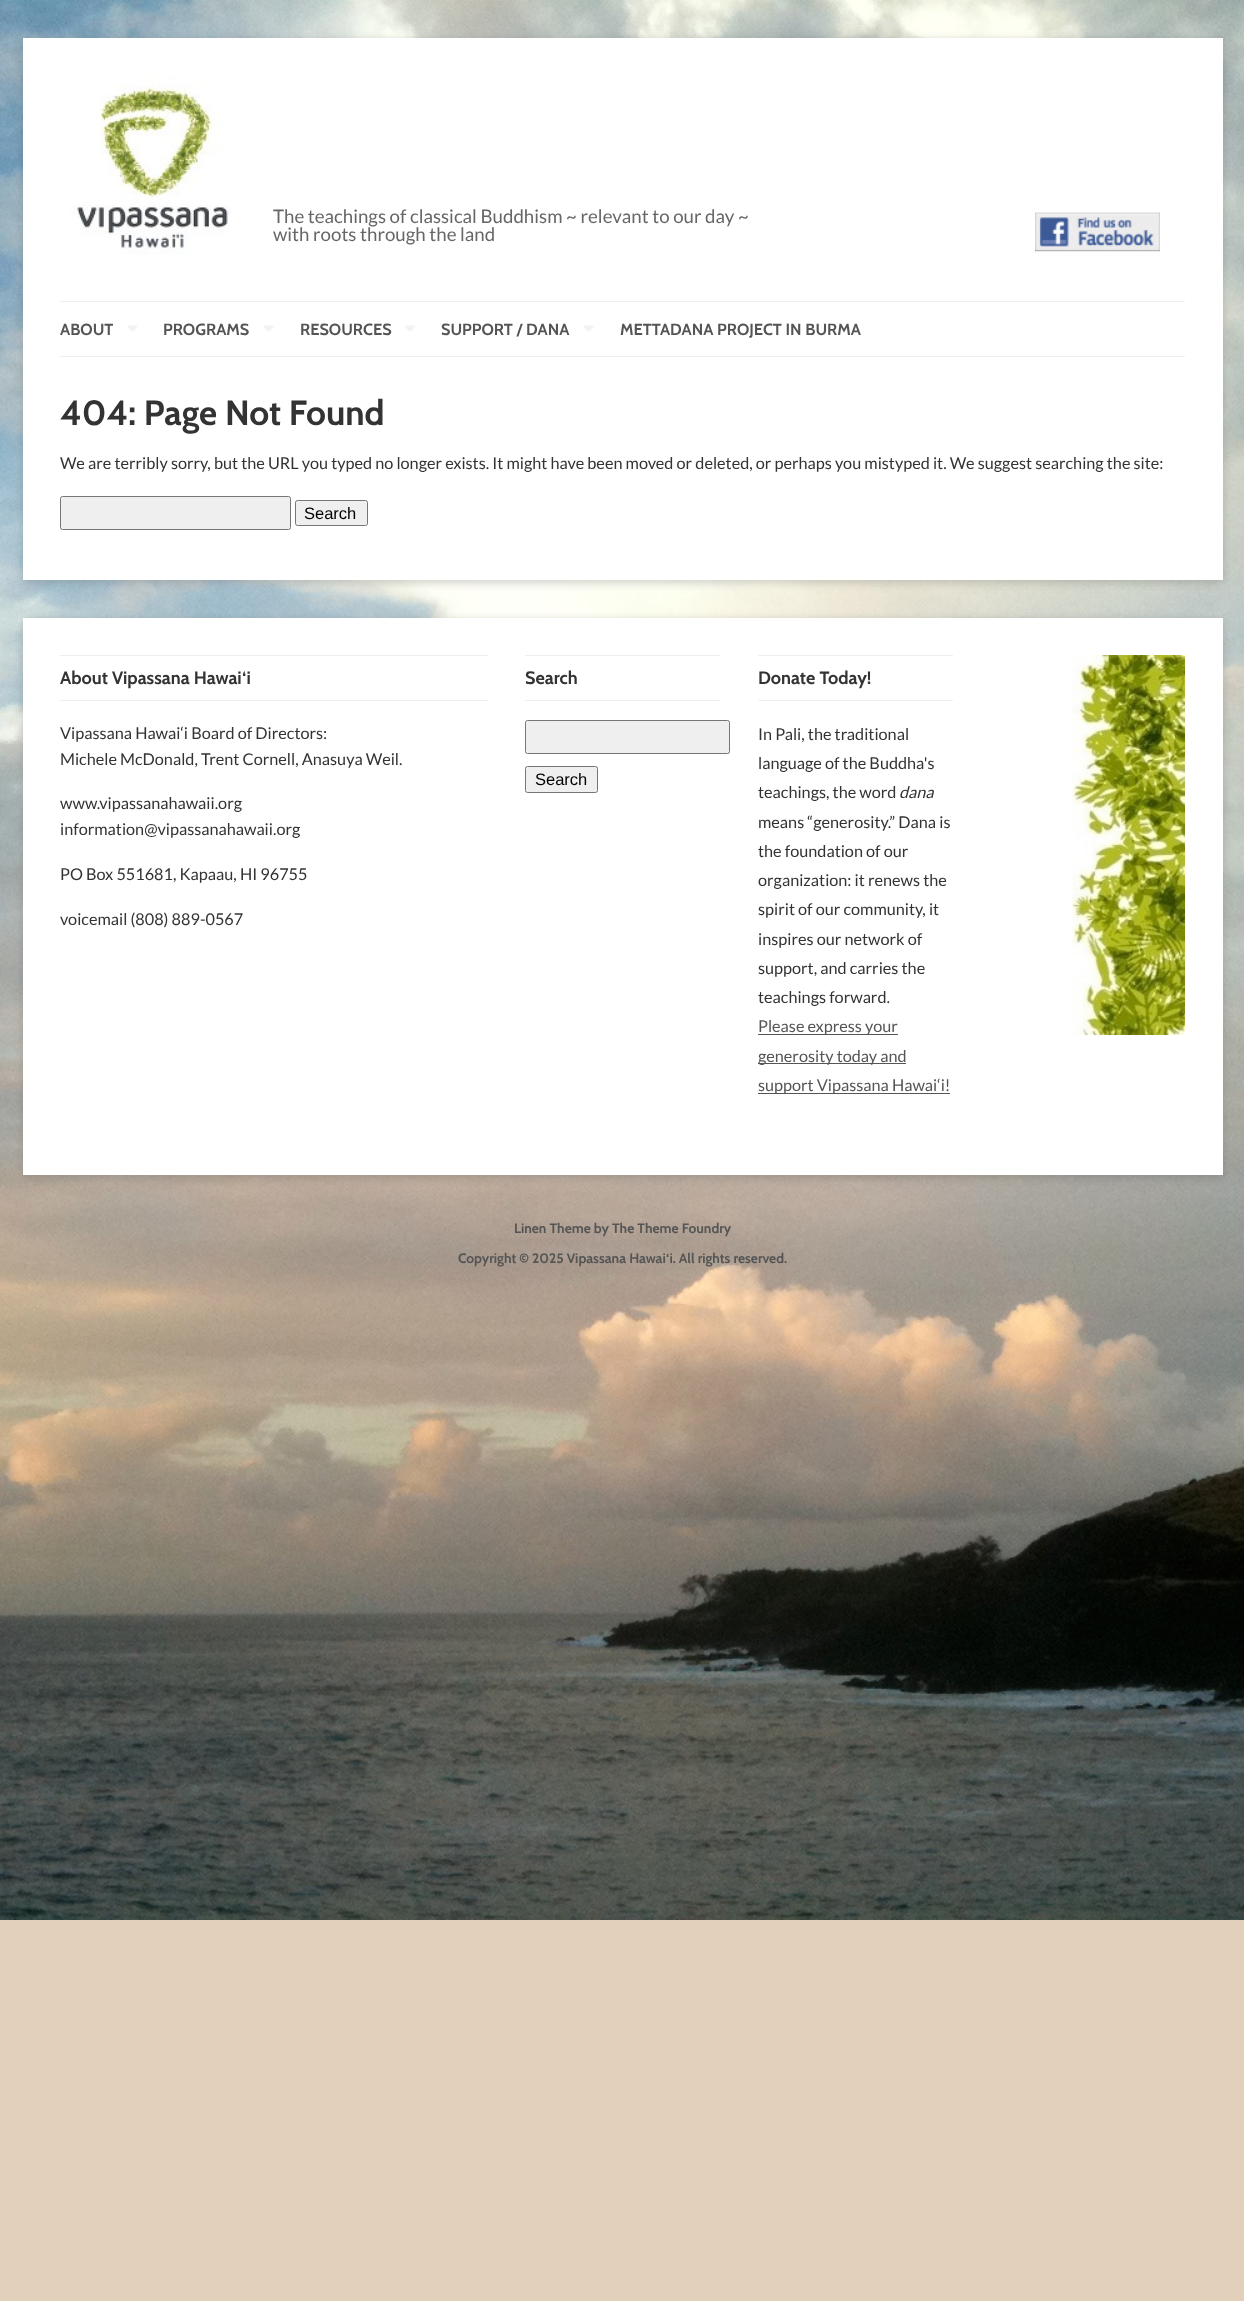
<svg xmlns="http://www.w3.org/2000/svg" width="1244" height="2301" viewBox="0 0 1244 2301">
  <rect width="100%" height="100%" fill="#e2d0ba"/>
  <image x="0" y="0" width="1244" height="1920" href="img/1.png"/>
  <path d="M23 40h1200v543H23z" fill="#6464644d" filter="blur(4px)"/>
  <path d="M23 38h1200v542H23z" fill="#fff"/>
  <image x="70" y="75" width="160" height="180" href="img/2.png"/>
  <image x="1035" y="212" width="125" height="40" href="img/3.png"/>
  <path d="M60 301h1125v1H60z" fill="#efefef"/>
  <path d="M60 356h1125v1H60z" fill="#efefef"/>
  <image x="127" y="325" width="11" height="7" href="img/4.png"/>
  <image x="263" y="325" width="12" height="7" href="img/5.png"/>
  <image x="404" y="325" width="12" height="7" href="img/6.png"/>
  <image x="583" y="325" width="12" height="7" href="img/5.png"/>
  <rect x="60.5" y="496.5" width="230" height="33" rx="2" fill="#efefef" stroke="#767676"/>
  <rect x="295.5" y="500.5" width="72" height="25" rx="2" fill="#efefef" stroke="#767676"/>
  <path d="M23 620h1200v558H23z" fill="#6464644d" filter="blur(4px)"/>
  <path d="M23 618h1200v557H23z" fill="#fff"/>
  <path d="M60 655h428v1H60z" fill="#efefef"/>
  <path d="M60 700h428v1H60z" fill="#efefef"/>
  <path d="M525 655h195v1H525z" fill="#efefef"/>
  <path d="M525 700h195v1H525z" fill="#efefef"/>
  <rect x="525.5" y="720.5" width="204" height="33" rx="2" fill="#efefef" stroke="#767676"/>
  <rect x="525.5" y="766.5" width="72" height="26" rx="2" fill="#efefef" stroke="#767676"/>
  <path d="M758 655h195v1H758z" fill="#efefef"/>
  <path d="M758 700h195v1H758z" fill="#efefef"/>
  <path d="M758 1034h140v1H758z" fill="#555"/>
  <path d="M758 1063h148v1H758z" fill="#555"/>
  <path d="M758 1093h192v1H758z" fill="#555"/>
  <image x="1072" y="655" width="113" height="380" href="img/7.png"/>
  <g font-family="Lato" font-size="18.7" fill="#666">
    <text x="273" y="223">The teachings of classical Buddhism ~ relevant to our day ~</text>
    <text x="273" y="241">with roots through the land</text>
  </g>
  <g font-family="Cabin" font-size="16.25" font-weight="bold" fill="#555">
    <text x="60" y="335">ABOUT</text>
    <text x="163" y="335">PROGRAMS</text>
    <text x="300" y="335">RESOURCES</text>
    <text x="441" y="335">SUPPORT / DANA</text>
    <text x="620" y="335">METTADANA PROJECT IN BURMA</text>
  </g>
  <text x="60" y="425" font-family="Cabin" font-size="35" font-weight="bold" fill="#333">404: Page Not Found</text>
  <text x="60" y="469" font-family="Lato" font-size="16.25" fill="#333">We are terribly sorry, but the URL you typed no longer exists. It might have been moved or deleted, or perhaps you mistyped it. We suggest searching the site:</text>
  <text x="304" y="519" font-family="Liberation Sans" font-size="16.5" fill="#000">Search</text>
  <text x="60" y="684" font-family="Cabin" font-size="18" font-weight="bold" fill="#333">About Vipassana Hawai‘i</text>
  <g font-family="Lato" font-size="16.25" fill="#333">
    <text x="60" y="739">Vipassana Hawai‘i Board of Directors:</text>
    <text x="60" y="765">Michele McDonald, Trent Cornell, Anasuya Weil.</text>
    <text x="60" y="809">www.vipassanahawaii.org</text>
    <text x="60" y="835">information@vipassanahawaii.org</text>
    <text x="60" y="880">PO Box 551681, Kapaau, HI 96755</text>
    <text x="60" y="925">voicemail (808) 889-0567</text>
  </g>
  <text x="525" y="684" font-family="Cabin" font-size="18" font-weight="bold" fill="#333">Search</text>
  <text x="535" y="785" font-family="Liberation Sans" font-size="16.5" fill="#000">Search</text>
  <text x="758" y="684" font-family="Cabin" font-size="18" font-weight="bold" fill="#333">Donate Today!</text>
  <g font-family="Lato" font-size="16.25" fill="#333">
    <text x="758" y="740">In Pali, the traditional</text>
    <text x="758" y="769">language of the Buddha's</text>
    <text x="758" y="798">teachings, the word</text>
  </g>
  <text x="899" y="798" font-family="Lato" font-size="16.25" font-style="italic" fill="#333">dana</text>
  <g font-family="Lato" font-size="16.25" fill="#333">
    <text x="758" y="828">means “generosity.” Dana is</text>
    <text x="758" y="857">the foundation of our</text>
    <text x="758" y="886">organization: it renews the</text>
    <text x="758" y="915">spirit of our community, it</text>
    <text x="758" y="945">inspires our network of</text>
    <text x="758" y="974">support, and carries the</text>
    <text x="758" y="1003">teachings forward.</text>
  </g>
  <g font-family="Lato" font-size="16.25" fill="#555">
    <text x="758" y="1032">Please express your</text>
    <text x="758" y="1062">generosity today and</text>
    <text x="758" y="1091">support Vipassana Hawai‘i!</text>
  </g>
  <g font-family="Cabin" font-size="13.75" font-weight="bold" fill="#555">
    <text x="514" y="1233">Linen Theme by The Theme Foundry</text>
    <text x="458" y="1263">Copyright © 2025 Vipassana Hawai‘i. All rights reserved.</text>
  </g>
</svg>
